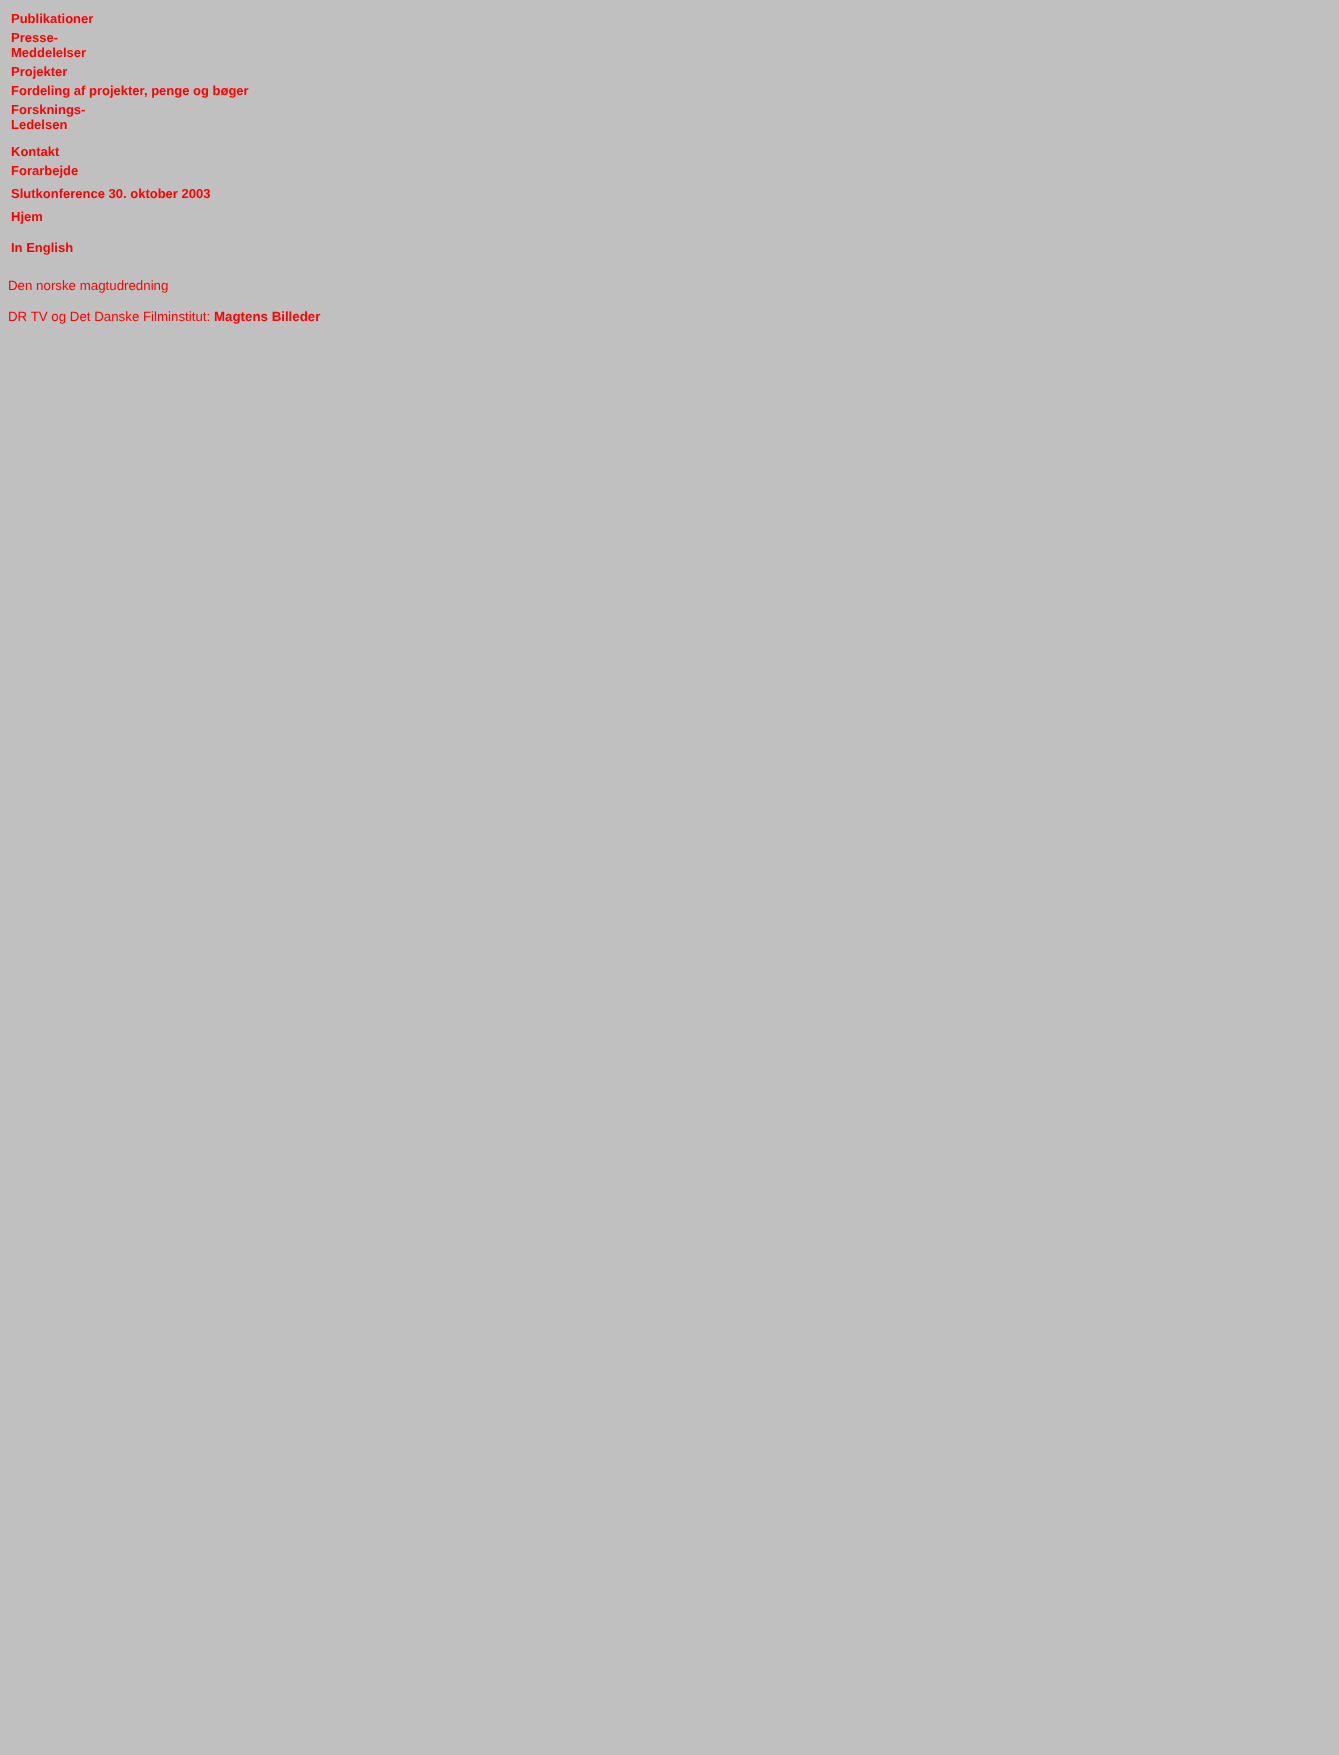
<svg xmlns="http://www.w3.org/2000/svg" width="1339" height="1755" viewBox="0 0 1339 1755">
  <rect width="100%" height="100%" fill="#c0c0c0"/>
  <g font-family="Liberation Sans" font-size="13" font-weight="bold" fill="#f00">
    <text x="11" y="23">Publikationer</text>
    <text x="11" y="42">Presse-</text>
    <text x="11" y="57">Meddelelser</text>
    <text x="11" y="76">Projekter</text>
    <text x="11" y="95">Fordeling af projekter, penge og bøger</text>
    <text x="11" y="114">Forsknings-</text>
    <text x="11" y="129">Ledelsen</text>
    <text x="11" y="156">Kontakt</text>
    <text x="11" y="175">Forarbejde</text>
    <text x="11" y="198">Slutkonference 30. oktober 2003</text>
    <text x="11" y="221">Hjem</text>
    <text x="11" y="252">In English</text>
  </g>
  <g font-family="Liberation Sans" font-size="13.3" fill="#f00">
    <text x="8" y="290">Den norske magtudredning</text>
    <text x="8" y="321">DR TV og Det Danske Filminstitut:</text>
  </g>
  <text x="214" y="321" font-family="Liberation Sans" font-size="13.3" font-weight="bold" fill="#f00">Magtens Billeder</text>
</svg>
